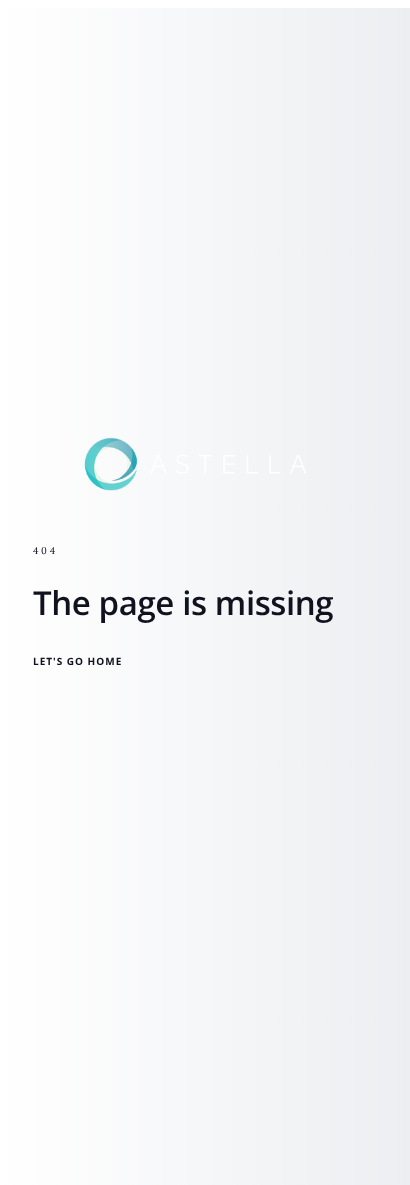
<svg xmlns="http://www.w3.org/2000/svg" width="410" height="1185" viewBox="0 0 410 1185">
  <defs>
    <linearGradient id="g1" gradientUnits="userSpaceOnUse" x1="0" y1="593" x2="410" y2="593"><stop offset="0" stop-color="#fff"/><stop offset="0.5" stop-color="#fff" stop-opacity="0.66"/><stop offset="1" stop-color="#fff" stop-opacity="0.3"/></linearGradient>
  </defs>
  <rect width="100%" height="100%" fill="#fff"/>
  <path d="M4 8h406v1177H4z" fill="#e4e7eb"/>
  <path d="M4 8h406v1177H4z" fill="url(#g1)"/>
  <image x="84" y="437" width="222" height="54" href="img/1.png"/>
  <text x="33" y="554" font-family="PT Serif" font-size="10" letter-spacing="3" fill="#10131f">404</text>
  <text x="33" y="615" font-family="Open Sans" font-size="33" font-weight="600" letter-spacing="-0.4" fill="#10131f">The page is missing</text>
  <text x="33" y="665" font-family="Open Sans" font-size="10" font-weight="bold" letter-spacing="1" fill="#10131f">LET'S GO HOME</text>
</svg>
